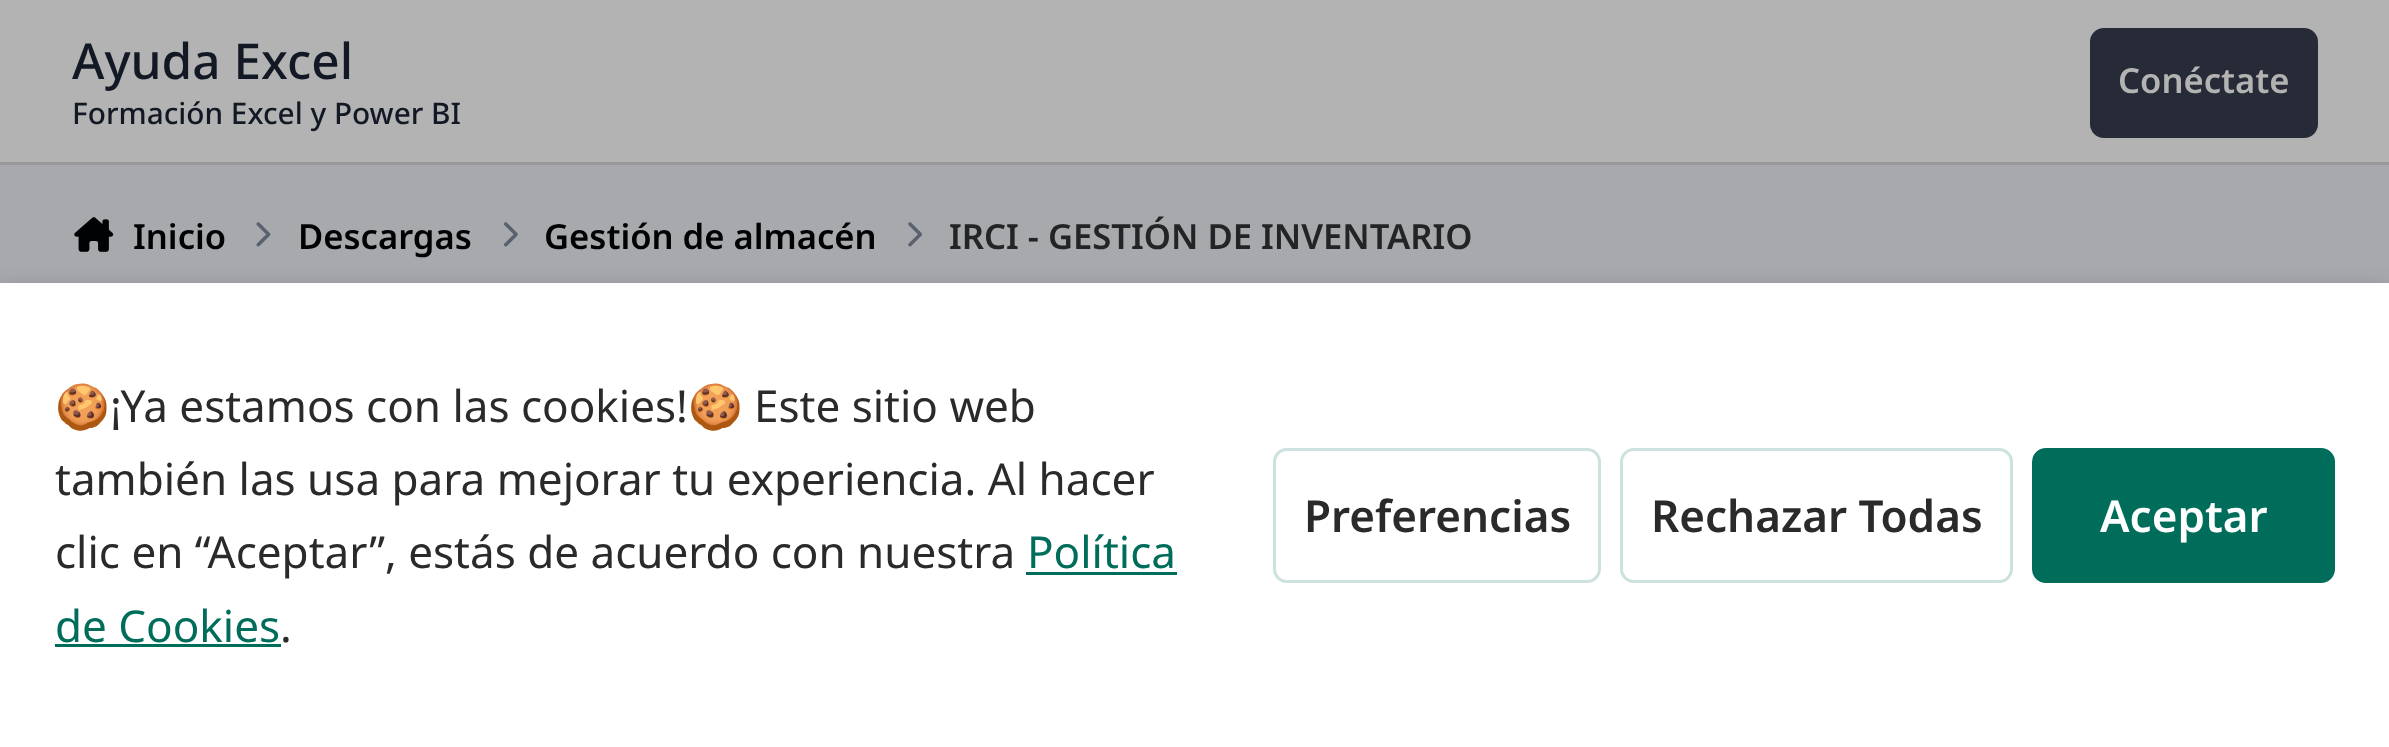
<svg xmlns="http://www.w3.org/2000/svg" width="2389" height="747" viewBox="0 0 2389 747">
  <rect width="100%" height="100%" fill="#a7a9ad"/>
  <path d="M0 0h2389v162H0z" fill="#b3b3b3"/>
  <path d="M0 162h2389v3H0z" fill="#99999a"/>
  <rect x="2090" y="28" width="228" height="110" rx="14" fill="#262b37"/>
  <image x="74" y="217" width="40" height="35" href="img/1.png"/>
  <image x="256" y="222" width="15" height="25" href="img/2.png"/>
  <image x="504" y="222" width="14" height="25" href="img/3.png"/>
  <image x="908" y="222" width="14" height="25" href="img/4.png"/>
  <path d="M0 289h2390v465H0z" fill="#00000033" filter="blur(11px)"/>
  <path d="M0 283h2389v464H0z" fill="#fff"/>
  <path d="M1026 572h151v3H1026z" fill="#006d5b"/>
  <path d="M55 644h226v3H55z" fill="#006d5b"/>
  <rect x="1274.5" y="449.5" width="325" height="132" rx="12.5" fill="none" stroke="#cce2de" stroke-width="3"/>
  <rect x="1621.5" y="449.5" width="390" height="132" rx="12.5" fill="none" stroke="#cce2de" stroke-width="3"/>
  <rect x="2033.5" y="449.5" width="300" height="132" rx="12.5" fill="#006d5b" stroke="#006d5b" stroke-width="3"/>
  <text x="72" y="79" font-family="Noto Sans" font-size="49.5" font-weight="500" fill="#131924">Ayuda Excel</text>
  <text x="72" y="124" font-family="Noto Sans" font-size="29.75" font-weight="500" fill="#131924">Formación Excel y Power BI</text>
  <text x="2118" y="93" font-family="Noto Sans" font-size="34.6" font-weight="600" fill="#b3b3b3">Conéctate</text>
  <g font-family="Noto Sans" font-size="34.6" font-weight="600" fill="#010204">
    <text x="133" y="249">Inicio</text>
    <text x="298" y="249">Descargas</text>
    <text x="544" y="249">Gestión de almacén</text>
  </g>
  <text x="949" y="249" font-family="Noto Sans" font-size="34.6" font-weight="600" fill="#222425">IRCI - GESTIÓN DE INVENTARIO</text>
  <text x="55" y="422" font-family="Noto Color Emoji" font-size="44" fill="#2a2a2a">🍪</text>
  <text x="110" y="422" font-family="Noto Sans" font-size="44" fill="#2a2a2a">¡Ya estamos con las cookies!</text>
  <text x="688" y="422" font-family="Noto Color Emoji" font-size="44" fill="#2a2a2a">🍪</text>
  <g font-family="Noto Sans" font-size="44" fill="#2a2a2a">
    <text x="754" y="422">Este sitio web</text>
    <text x="55" y="495">también las usa para mejorar tu experiencia. Al hacer</text>
    <text x="55" y="568">clic en “Aceptar”, estás de acuerdo con nuestra</text>
  </g>
  <g font-family="Noto Sans" font-size="44" fill="#006d5b">
    <text x="1027" y="568">Política</text>
    <text x="55" y="642">de Cookies</text>
  </g>
  <text x="280" y="642" font-family="Noto Sans" font-size="44" fill="#2a2a2a">.</text>
  <g font-family="Noto Sans" font-size="44" font-weight="600" fill="#2a2a2a">
    <text x="1304" y="532">Preferencias</text>
    <text x="1651" y="532">Rechazar Todas</text>
  </g>
  <text x="2100" y="532" font-family="Noto Sans" font-size="44" font-weight="600" fill="#fff">Aceptar</text>
</svg>
